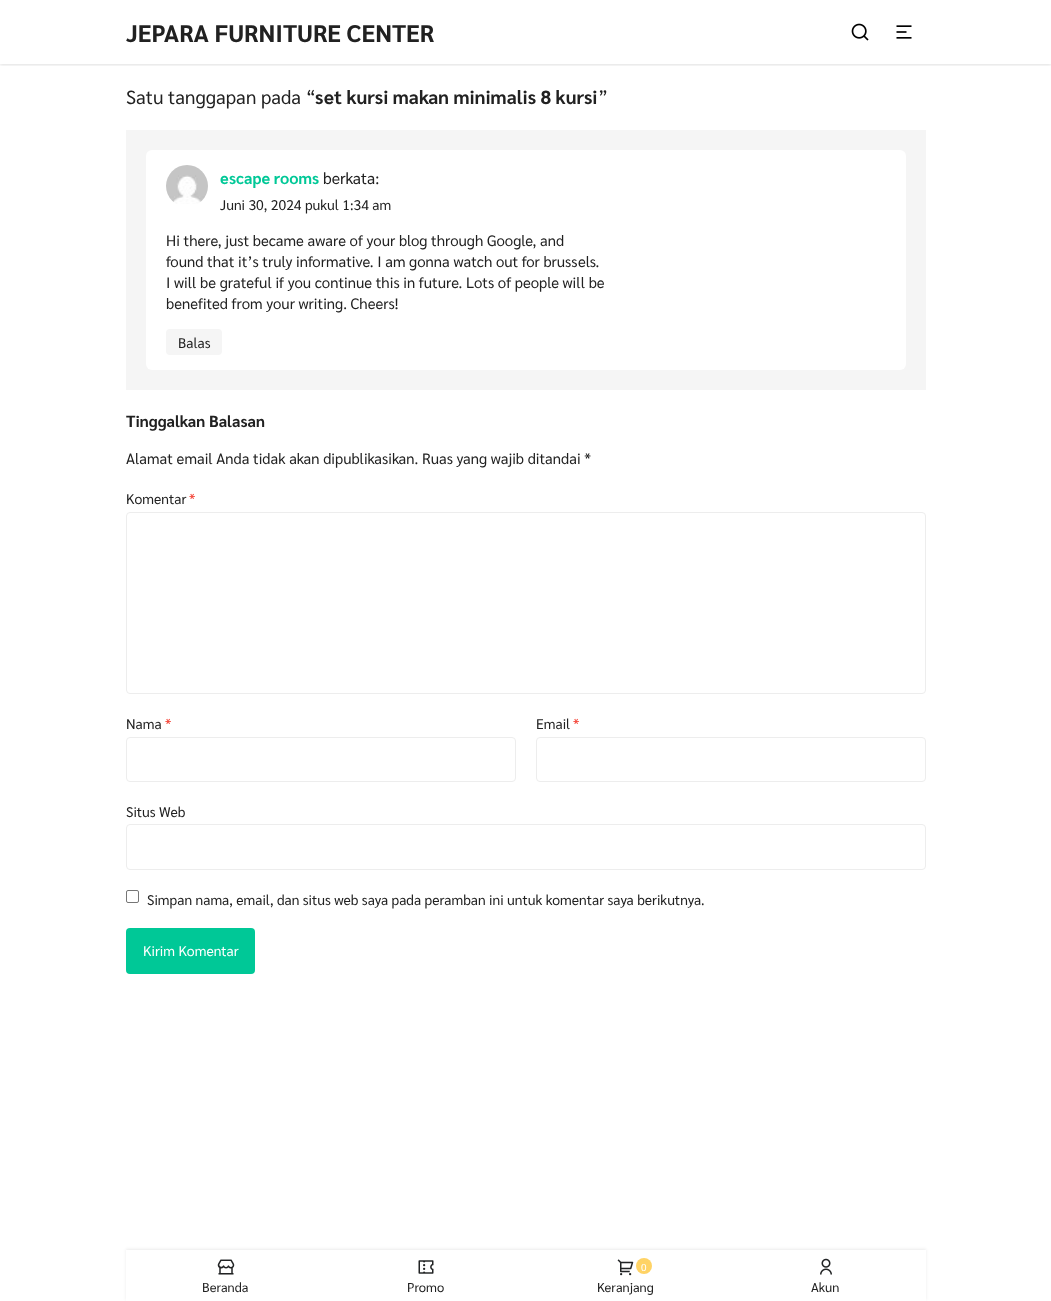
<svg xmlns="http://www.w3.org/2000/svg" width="1051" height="1301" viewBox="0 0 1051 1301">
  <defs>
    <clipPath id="clip1"><path d="M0 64h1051v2H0z"/></clipPath>
    <clipPath id="clip2"><path d="M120 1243H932V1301H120ZM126 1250H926V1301H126Z" clip-rule="evenodd"/></clipPath>
  </defs>
  <rect width="100%" height="100%" fill="#fff"/>
  <g clip-path="url(#clip1)">
    <path d="M0 1h1051v64H0z" fill="#0000001f" filter="blur(1.5px)"/>
  </g>
  <image x="851" y="23" width="18" height="18" href="img/1.png"/>
  <image x="896" y="25" width="16" height="14" href="img/2.png"/>
  <path d="M126 130h800v260H126z" fill="#f5f5f5"/>
  <rect x="146" y="150" width="760" height="220" rx="6" fill="#fff"/>
  <image x="166" y="165" width="42" height="39" href="img/3.png"/>
  <rect x="166" y="329" width="56" height="26" rx="4" fill="#f5f5f5"/>
  <rect x="126.5" y="512.5" width="799" height="181" rx="3.5" fill="none" stroke="#ededed"/>
  <rect x="126.5" y="737.5" width="389" height="44" rx="3.5" fill="none" stroke="#ededed"/>
  <rect x="536.5" y="737.5" width="389" height="44" rx="3.5" fill="none" stroke="#ededed"/>
  <rect x="126.5" y="824.5" width="799" height="45" rx="3.5" fill="none" stroke="#ededed"/>
  <rect x="126.5" y="890.5" width="12" height="12" rx="1.5" fill="none" stroke="#767676"/>
  <rect x="126" y="928" width="129" height="46" rx="4" fill="#00c897"/>
  <g clip-path="url(#clip2)">
    <path d="M126 1249h800v51H126z" fill="#00000014" filter="blur(1.5px)"/>
  </g>
  <image x="217" y="1259" width="18" height="16" href="img/4.png"/>
  <image x="418" y="1260" width="16" height="14" href="img/5.png"/>
  <image x="617" y="1259" width="17" height="17" href="img/6.png"/>
  <circle cx="644" cy="1266" r="8" fill="#ffd365"/>
  <image x="820" y="1258" width="12" height="17" href="img/7.png"/>
  <text x="126" y="42" font-family="Sarabun" font-size="24" font-weight="bold" fill="#212121">JEPARA FURNITURE CENTER</text>
  <text x="126" y="104" font-family="Sarabun" font-size="19" fill="#212121">Satu tanggapan pada “</text>
  <text x="315" y="104" font-family="Sarabun" font-size="19" font-weight="bold" fill="#212121">set kursi makan minimalis 8 kursi</text>
  <text x="598" y="104" font-family="Sarabun" font-size="19" fill="#212121">”</text>
  <text x="220" y="184" font-family="Sarabun" font-size="16" font-weight="bold" fill="#00c897">escape rooms</text>
  <text x="323" y="184" font-family="Sarabun" font-size="16" fill="#212121">berkata:</text>
  <text x="220" y="210" font-family="Sarabun" font-size="14" fill="#212121">Juni 30, 2024 pukul 1:34 am</text>
  <g font-family="Sarabun" font-size="15" fill="#212121">
    <text x="166" y="246">Hi there, just became aware of your blog through Google, and</text>
    <text x="166" y="267">found that it’s truly informative. I am gonna watch out for brussels.</text>
    <text x="166" y="288">I will be grateful if you continue this in future. Lots of people will be</text>
    <text x="166" y="309">benefited from your writing. Cheers!</text>
  </g>
  <text x="178" y="348" font-family="Sarabun" font-size="14" fill="#212121">Balas</text>
  <text x="126" y="427" font-family="Sarabun" font-size="16" font-weight="bold" fill="#212121">Tinggalkan Balasan</text>
  <text x="126" y="464" font-family="Sarabun" font-size="15" fill="#212121">Alamat email Anda tidak akan dipublikasikan. Ruas yang wajib ditandai *</text>
  <text x="126" y="504" font-family="Sarabun" font-size="14" fill="#212121">Komentar</text>
  <text x="189" y="504" font-family="Sarabun" font-size="14" fill="#f44336">*</text>
  <text x="126" y="729" font-family="Sarabun" font-size="14" fill="#212121">Nama</text>
  <text x="165" y="729" font-family="Sarabun" font-size="14" fill="#f44336">*</text>
  <text x="536" y="729" font-family="Sarabun" font-size="14" fill="#212121">Email</text>
  <text x="573" y="729" font-family="Sarabun" font-size="14" fill="#f44336">*</text>
  <g font-family="Sarabun" font-size="14" fill="#212121">
    <text x="126" y="817">Situs Web</text>
    <text x="147" y="905">Simpan nama, email, dan situs web saya pada peramban ini untuk komentar saya berikutnya.</text>
  </g>
  <text x="143" y="956" font-family="Sarabun" font-size="14" fill="#fff">Kirim Komentar</text>
  <g font-family="Sarabun" font-size="13" fill="#212121">
    <text x="202" y="1292">Beranda</text>
    <text x="407" y="1292">Promo</text>
  </g>
  <text x="641" y="1271" font-family="Sarabun" font-size="10" fill="#fff">0</text>
  <g font-family="Sarabun" font-size="13" fill="#212121">
    <text x="597" y="1292">Keranjang</text>
    <text x="811" y="1292">Akun</text>
  </g>
</svg>
